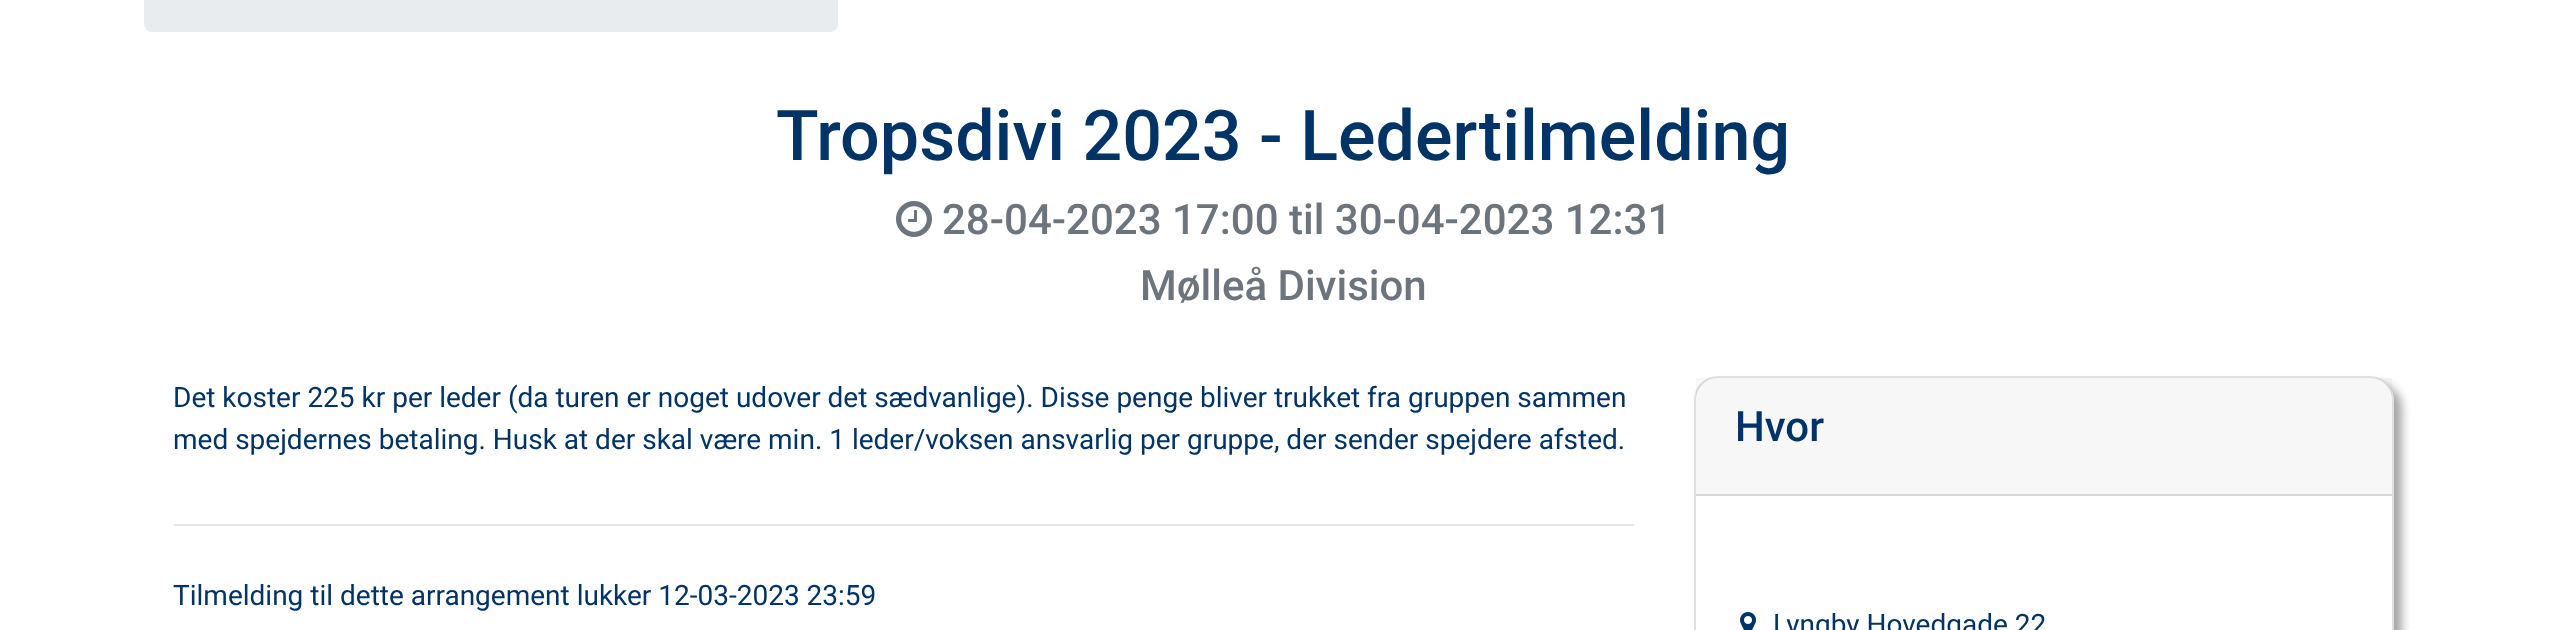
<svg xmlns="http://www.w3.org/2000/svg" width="2565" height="630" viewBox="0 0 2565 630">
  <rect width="100%" height="100%" fill="#fff"/>
  <rect x="144" y="-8" width="694" height="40" rx="8" fill="#e9ecef"/>
  <image x="896" y="201" width="36" height="36" href="img/1.png"/>
  <path d="M174 524h1460v2H174z" fill="#e6e6e6"/>
  <rect x="1702" y="384" width="700" height="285" rx="24" fill="#00000059" filter="blur(5px)"/>
  <rect x="1694" y="376" width="700" height="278" rx="24" fill="#fff"/>
  <rect x="1695" y="377" width="698" height="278" rx="23" fill="none" stroke="#0000001f" stroke-width="2"/>
  <path d="M1696 378h696v116H1696z" fill="#00000008"/>
  <path d="M1696 494h696v2H1696z" fill="#d8d8d8"/>
  <image x="1740" y="612" width="16" height="18" href="img/2.png"/>
  <text x="776" y="160" font-family="Roboto" font-size="70" font-weight="500" fill="#036">Tropsdivi 2023 - Ledertilmelding</text>
  <g font-family="Roboto" font-size="42" font-weight="500" fill="#6c757d">
    <text x="942" y="234">28-04-2023 17:00 til 30-04-2023 12:31</text>
    <text x="1140" y="300">Mølleå Division</text>
  </g>
  <g font-family="Roboto" font-size="28" fill="#036">
    <text x="173" y="407">Det koster 225 kr per leder (da turen er noget udover det sædvanlige). Disse penge bliver trukket fra gruppen sammen</text>
    <text x="173" y="449">med spejdernes betaling. Husk at der skal være min. 1 leder/voksen ansvarlig per gruppe, der sender spejdere afsted.</text>
    <text x="173" y="605">Tilmelding til dette arrangement lukker 12-03-2023 23:59</text>
  </g>
  <text x="1735" y="441" font-family="Roboto" font-size="42" font-weight="500" fill="#036">Hvor</text>
  <text x="1773" y="634" font-family="Roboto" font-size="28" fill="#036">Lyngby Hovedgade 22</text>
</svg>
